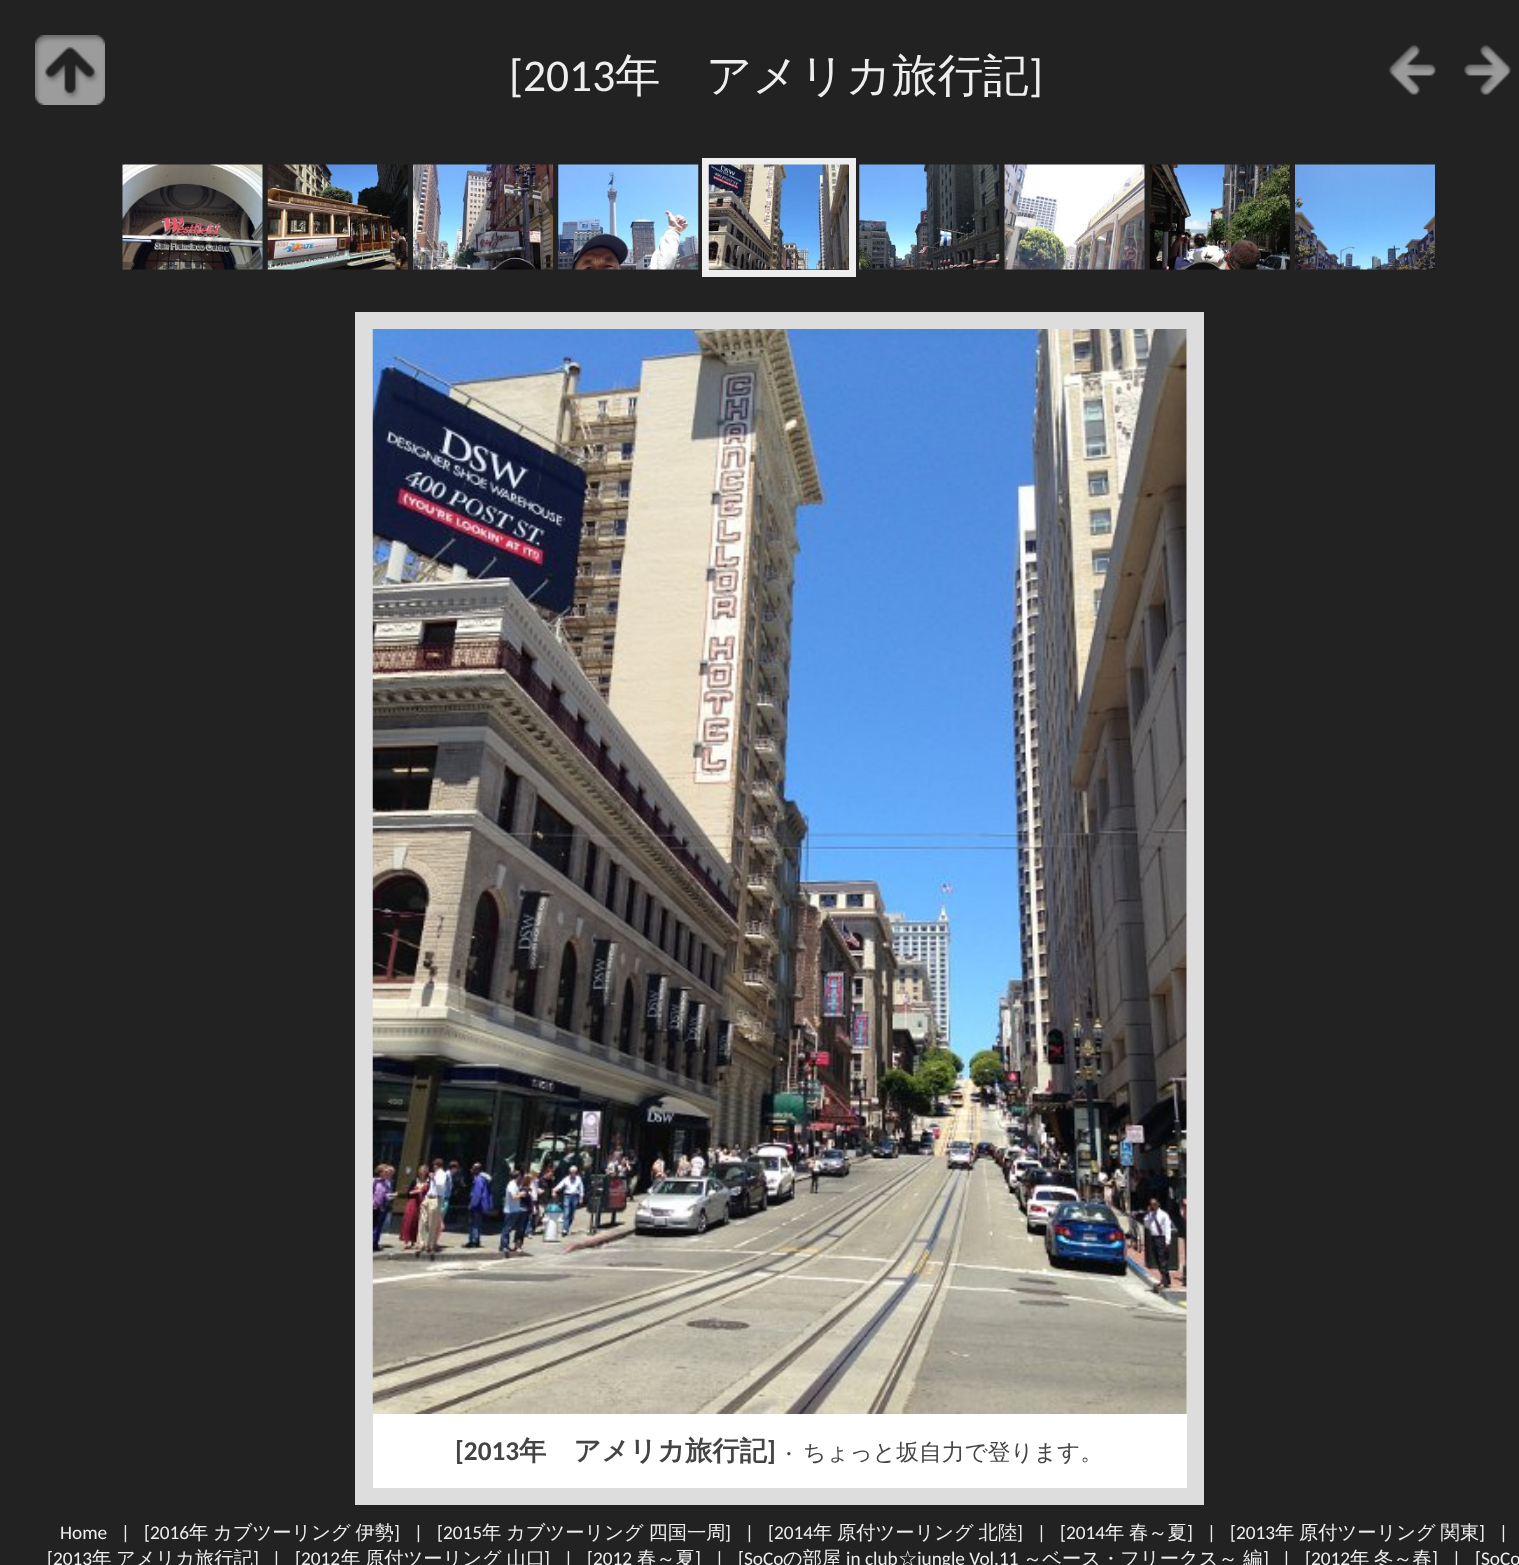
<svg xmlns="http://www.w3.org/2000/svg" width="1519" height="1565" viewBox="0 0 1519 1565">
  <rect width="100%" height="100%" fill="#222"/>
  <image x="35" y="35" width="70" height="70" href="img/1.png"/>
  <image x="1389" y="45" width="47" height="50" href="img/2.png"/>
  <image x="1464" y="45" width="47" height="50" href="img/3.png"/>
  <image x="122" y="164" width="141" height="106" href="img/4.png"/>
  <image x="267" y="164" width="141" height="106" href="img/5.png"/>
  <image x="413" y="164" width="140" height="106" href="img/6.png"/>
  <image x="558" y="164" width="141" height="106" href="img/7.png"/>
  <path d="M705.5 161.5h147v112H705.5z" fill="none" stroke="#eee" stroke-width="7"/>
  <image x="708" y="164" width="141" height="106" href="img/8.png"/>
  <image x="859" y="164" width="141" height="106" href="img/9.png"/>
  <image x="1004" y="164" width="141" height="106" href="img/10.png"/>
  <image x="1149" y="164" width="141" height="106" href="img/11.png"/>
  <image x="1295" y="164" width="140" height="106" href="img/12.png"/>
  <path d="M355 312h849v1193H355z" fill="#ddd"/>
  <image x="372" y="329" width="815" height="1085" href="img/13.png"/>
  <path d="M373 1414h814v74H373z" fill="#fff"/>
  <text x="509" y="91" font-family="Carlito" font-size="45.5" fill="#eee">[2013</text>
  <text x="615" y="91" font-family="WenQuanYi Zen Hei" font-size="45.5" font-weight="500" fill="#eee">年　アメリカ旅行記</text>
  <text x="1029" y="91" font-family="Carlito" font-size="45.5" fill="#eee">]</text>
  <text x="455" y="1460" font-family="Carlito" font-size="27.25" font-weight="bold" fill="#444">[2013</text>
  <text x="519" y="1460" font-family="WenQuanYi Zen Hei" font-size="27.25" font-weight="bold" fill="#444">年　アメリカ旅行記</text>
  <text x="767" y="1460" font-family="Carlito" font-size="27.25" font-weight="bold" fill="#444">]</text>
  <text x="786" y="1460" font-family="Carlito" font-size="22.75" fill="#444">·</text>
  <text x="803" y="1460" font-family="WenQuanYi Zen Hei" font-size="22.75" font-weight="500" fill="#444">ちょっと坂自力で登ります。</text>
  <g font-family="Carlito" font-size="19.3" fill="#eee">
    <text x="60" y="1539">Home</text>
    <text x="121" y="1539">|</text>
    <text x="144" y="1539">[2016</text>
  </g>
  <text x="189" y="1539" word-spacing="-1" font-family="WenQuanYi Zen Hei" font-size="19.3" font-weight="500" fill="#eee">年 カブツーリング 伊勢</text>
  <g font-family="Carlito" font-size="19.3" fill="#eee">
    <text x="394" y="1539">]</text>
    <text x="414" y="1539">|</text>
    <text x="437" y="1539">[2015</text>
  </g>
  <text x="482" y="1539" word-spacing="-1" font-family="WenQuanYi Zen Hei" font-size="19.3" font-weight="500" fill="#eee">年 カブツーリング 四国一周</text>
  <g font-family="Carlito" font-size="19.3" fill="#eee">
    <text x="725" y="1539">]</text>
    <text x="745" y="1539">|</text>
    <text x="768" y="1539">[2014</text>
  </g>
  <text x="813" y="1539" word-spacing="-1" font-family="WenQuanYi Zen Hei" font-size="19.3" font-weight="500" fill="#eee">年 原付ツーリング 北陸</text>
  <g font-family="Carlito" font-size="19.3" fill="#eee">
    <text x="1017" y="1539">]</text>
    <text x="1037" y="1539">|</text>
    <text x="1060" y="1539">[2014</text>
  </g>
  <text x="1105" y="1539" word-spacing="-1" font-family="WenQuanYi Zen Hei" font-size="19.3" font-weight="500" fill="#eee">年 春～夏</text>
  <g font-family="Carlito" font-size="19.3" fill="#eee">
    <text x="1187" y="1539">]</text>
    <text x="1207" y="1539">|</text>
    <text x="1230" y="1539">[2013</text>
  </g>
  <text x="1275" y="1539" word-spacing="-1" font-family="WenQuanYi Zen Hei" font-size="19.3" font-weight="500" fill="#eee">年 原付ツーリング 関東</text>
  <g font-family="Carlito" font-size="19.3" fill="#eee">
    <text x="1479" y="1539">]</text>
    <text x="1499" y="1539">|</text>
    <text x="47" y="1565">[2013</text>
  </g>
  <text x="92" y="1565" word-spacing="-1" font-family="WenQuanYi Zen Hei" font-size="19.3" font-weight="500" fill="#eee">年 アメリカ旅行記</text>
  <g font-family="Carlito" font-size="19.3" fill="#eee">
    <text x="253" y="1565">]</text>
    <text x="272" y="1565">|</text>
    <text x="295" y="1565">[2012</text>
  </g>
  <text x="341" y="1565" word-spacing="-1" font-family="WenQuanYi Zen Hei" font-size="19.3" font-weight="500" fill="#eee">年 原付ツーリング 山口</text>
  <g font-family="Carlito" font-size="19.3" fill="#eee">
    <text x="544" y="1565">]</text>
    <text x="564" y="1565">|</text>
    <text x="587" y="1565">[2012</text>
  </g>
  <text x="637" y="1565" font-family="WenQuanYi Zen Hei" font-size="19.3" font-weight="500" fill="#eee">春～夏</text>
  <g font-family="Carlito" font-size="19.3" fill="#eee">
    <text x="695" y="1565">]</text>
    <text x="715" y="1565">|</text>
    <text x="738" y="1565">[SoCo</text>
  </g>
  <text x="783" y="1565" font-family="WenQuanYi Zen Hei" font-size="19.3" font-weight="500" fill="#eee">の部屋</text>
  <text x="846" y="1565" font-family="Carlito" font-size="19.3" fill="#eee">in club</text>
  <text x="898" y="1565" font-family="WenQuanYi Zen Hei" font-size="19.3" font-weight="500" fill="#eee">☆</text>
  <text x="917" y="1565" font-family="Carlito" font-size="19.3" fill="#eee">jungle Vol.11</text>
  <g font-family="WenQuanYi Zen Hei" font-size="19.3" font-weight="500" fill="#eee">
    <text x="1023" y="1565">～ベース・フリークス～</text>
    <text x="1243" y="1565">編</text>
  </g>
  <g font-family="Carlito" font-size="19.3" fill="#eee">
    <text x="1263" y="1565">]</text>
    <text x="1282" y="1565">|</text>
    <text x="1305" y="1565">[2012</text>
  </g>
  <text x="1350" y="1565" word-spacing="-1" font-family="WenQuanYi Zen Hei" font-size="19.3" font-weight="500" fill="#eee">年 冬～春</text>
  <g font-family="Carlito" font-size="19.3" fill="#eee">
    <text x="1432" y="1565">]</text>
    <text x="1452" y="1565">|</text>
    <text x="1475" y="1565">[SoCo</text>
  </g>
</svg>
